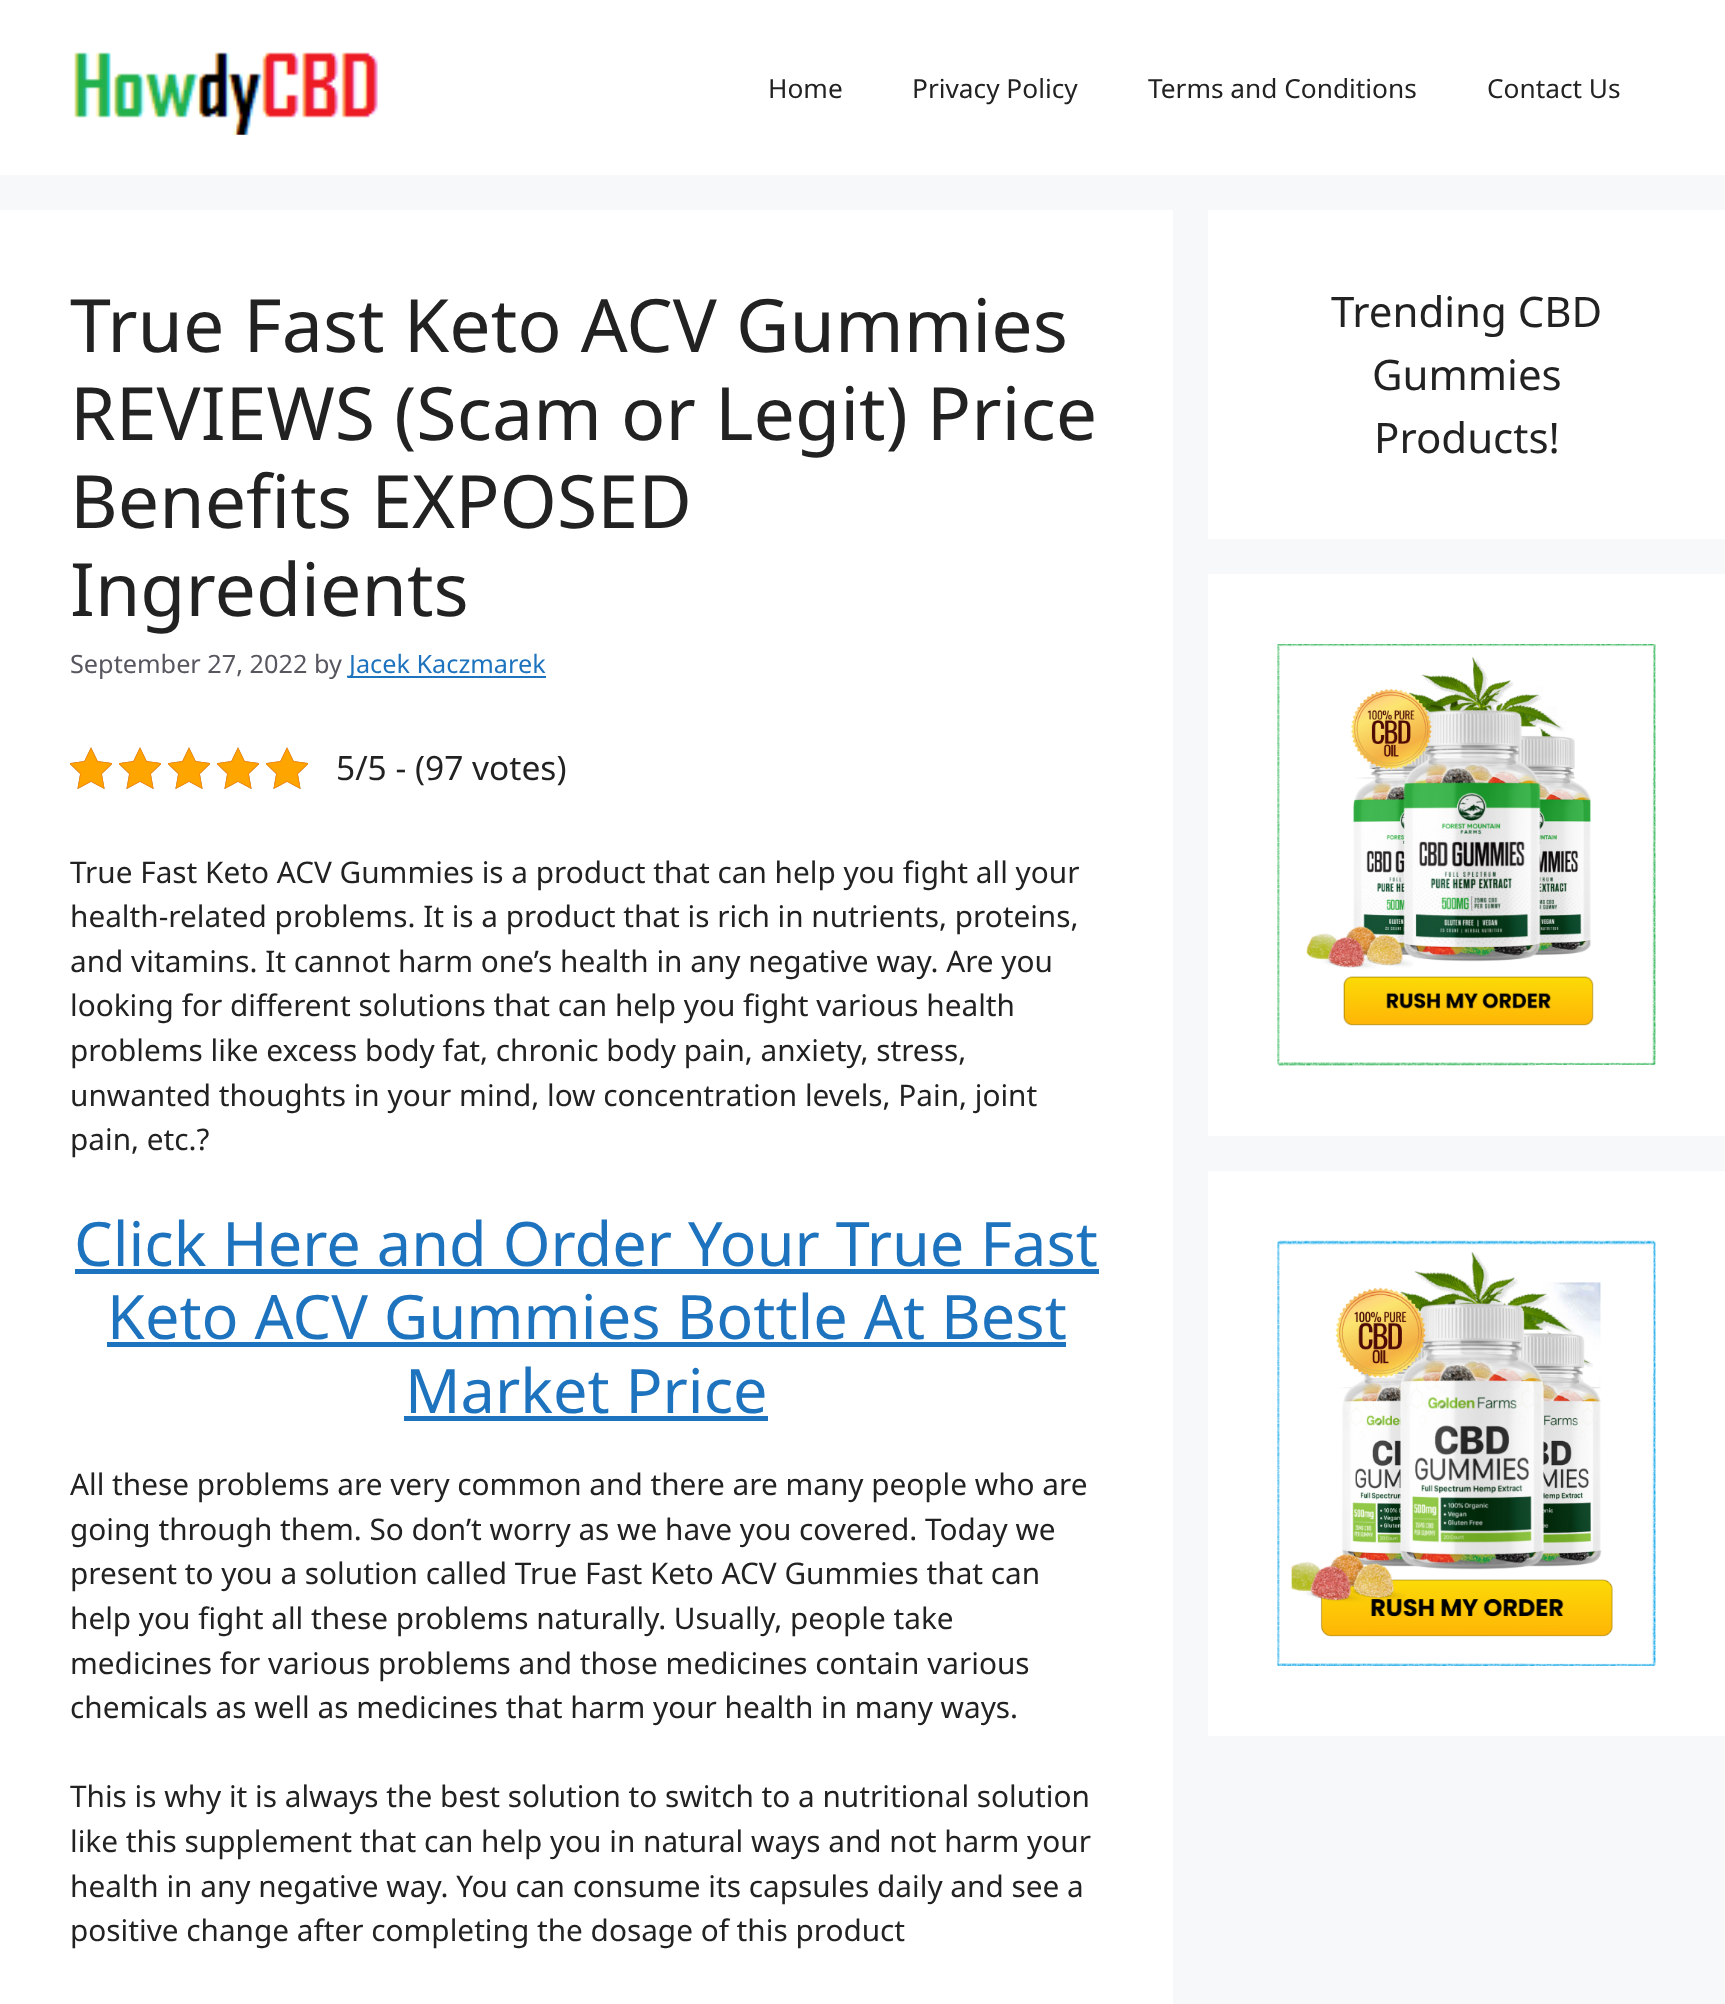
<svg xmlns="http://www.w3.org/2000/svg" width="1725" height="2004" viewBox="0 0 1725 2004">
  <rect width="100%" height="100%" fill="#f7f8f9"/>
  <path d="M0 0h1725v175H0z" fill="#fff"/>
  <image x="74" y="52" width="304" height="83" href="img/1.png"/>
  <path d="M0 210h1173v1794H0z" fill="#fff"/>
  <path d="M348 676h198v2H348z" fill="#1e73be"/>
  <image x="70" y="747" width="42" height="42" href="img/2.png"/>
  <image x="119" y="747" width="42" height="42" href="img/2.png"/>
  <image x="168" y="747" width="42" height="42" href="img/2.png"/>
  <image x="217" y="747" width="42" height="42" href="img/2.png"/>
  <image x="266" y="747" width="42" height="42" href="img/2.png"/>
  <image x="70" y="747" width="42" height="42" href="img/3.png"/>
  <image x="119" y="747" width="42" height="42" href="img/3.png"/>
  <image x="168" y="747" width="42" height="42" href="img/3.png"/>
  <image x="217" y="747" width="42" height="42" href="img/3.png"/>
  <image x="266" y="747" width="42" height="42" href="img/3.png"/>
  <path d="M75 1269h1024v5H75z" fill="#1e73be"/>
  <path d="M107 1342h959v5H107z" fill="#1e73be"/>
  <path d="M404 1416h364v5H404z" fill="#1e73be"/>
  <path d="M1208 210h517v329H1208z" fill="#fff"/>
  <path d="M1208 574h517v562H1208z" fill="#fff"/>
  <image x="1277" y="644" width="379" height="422" href="img/4.png"/>
  <path d="M1208 1171h517v565H1208z" fill="#fff"/>
  <image x="1277" y="1240" width="379" height="426" href="img/5.png"/>
  <g font-family="Noto Sans" font-size="26.25" fill="#222">
    <text x="768" y="98">Home</text>
    <text x="912" y="98">Privacy Policy</text>
    <text x="1148" y="98">Terms and Conditions</text>
    <text x="1487" y="98">Contact Us</text>
  </g>
  <g font-family="Noto Sans" font-size="73.5" fill="#222">
    <text x="70" y="352">True Fast Keto ACV Gummies</text>
    <text x="70" y="440">REVIEWS (Scam or Legit) Price</text>
    <text x="70" y="528">Benefits EXPOSED</text>
    <text x="70" y="616">Ingredients</text>
  </g>
  <text x="70" y="673" font-family="Noto Sans" font-size="25.25" fill="#575760">September 27, 2022 by</text>
  <text x="349" y="673" font-family="Noto Sans" font-size="25.25" fill="#1e73be">Jacek Kaczmarek</text>
  <text x="336" y="780" font-family="Noto Sans" font-size="33.5" fill="#222">5/5 - (97 votes)</text>
  <g font-family="Noto Sans" font-size="29.75" fill="#222">
    <text x="70" y="883">True Fast Keto ACV Gummies is a product that can help you fight all your</text>
    <text x="70" y="927">health-related problems. It is a product that is rich in nutrients, proteins,</text>
    <text x="70" y="972">and vitamins. It cannot harm one’s health in any negative way. Are you</text>
    <text x="70" y="1016">looking for different solutions that can help you fight various health</text>
    <text x="70" y="1061">problems like excess body fat, chronic body pain, anxiety, stress,</text>
    <text x="70" y="1106">unwanted thoughts in your mind, low concentration levels, Pain, joint</text>
    <text x="70" y="1150">pain, etc.?</text>
  </g>
  <g font-family="Noto Sans" font-size="61.25" fill="#1e73be">
    <text x="74" y="1266">Click Here and Order Your True Fast</text>
    <text x="107" y="1339">Keto ACV Gummies Bottle At Best</text>
    <text x="405" y="1413">Market Price</text>
  </g>
  <g font-family="Noto Sans" font-size="29.75" fill="#222">
    <text x="70" y="1495">All these problems are very common and there are many people who are</text>
    <text x="70" y="1540">going through them. So don’t worry as we have you covered. Today we</text>
    <text x="70" y="1584">present to you a solution called True Fast Keto ACV Gummies that can</text>
    <text x="70" y="1629">help you fight all these problems naturally. Usually, people take</text>
    <text x="70" y="1674">medicines for various problems and those medicines contain various</text>
    <text x="70" y="1718">chemicals as well as medicines that harm your health in many ways.</text>
    <text x="70" y="1807">This is why it is always the best solution to switch to a nutritional solution</text>
    <text x="70" y="1852">like this supplement that can help you in natural ways and not harm your</text>
    <text x="70" y="1897">health in any negative way. You can consume its capsules daily and see a</text>
    <text x="70" y="1941">positive change after completing the dosage of this product</text>
  </g>
  <g font-family="Noto Sans" font-size="42" fill="#222">
    <text x="1331" y="327">Trending CBD</text>
    <text x="1372" y="390">Gummies</text>
    <text x="1374" y="453">Products!</text>
  </g>
</svg>
